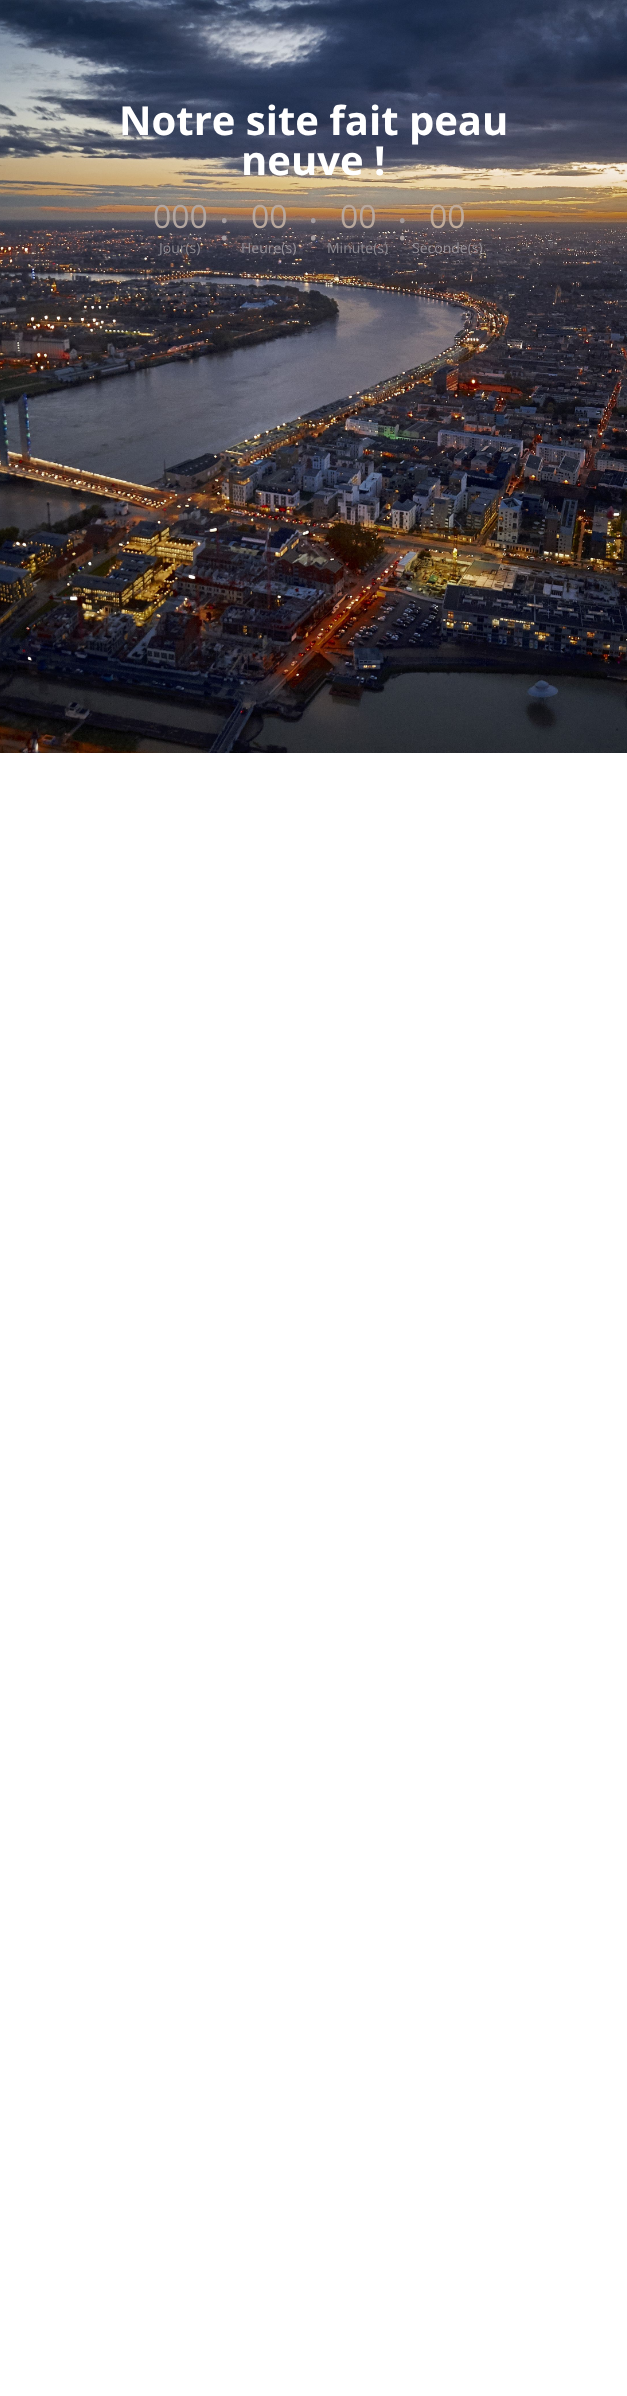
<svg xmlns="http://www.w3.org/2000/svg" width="627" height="2396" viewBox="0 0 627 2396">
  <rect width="100%" height="100%" fill="#fff"/>
  <image x="0" y="0" width="627" height="753" href="img/1.png"/>
  <g font-family="Open Sans" font-size="40" font-weight="bold" fill="#fff">
    <text x="119" y="135">Notre site fait peau</text>
    <text x="241" y="175">neuve !</text>
  </g>
  <text x="153" y="228" font-family="Open Sans" font-size="32" fill="#b2a6a0">000</text>
  <text x="159" y="253" font-family="Open Sans" font-size="14" fill="#8c8a91">Jour(s)</text>
  <text x="219" y="240" font-family="Open Sans" font-size="40" fill="#a49c9f">:</text>
  <text x="251" y="228" font-family="Open Sans" font-size="32" fill="#b9a89d">00</text>
  <text x="241" y="253" font-family="Open Sans" font-size="14" fill="#949097">Heure(s)</text>
  <text x="308" y="240" font-family="Open Sans" font-size="40" fill="#a49c9f">:</text>
  <text x="340" y="228" font-family="Open Sans" font-size="32" fill="#b9a89d">00</text>
  <text x="327" y="253" font-family="Open Sans" font-size="14" fill="#8c8a91">Minute(s)</text>
  <text x="397" y="240" font-family="Open Sans" font-size="40" fill="#a49a99">:</text>
  <text x="429" y="228" font-family="Open Sans" font-size="32" fill="#c0ab9a">00</text>
  <text x="412" y="253" font-family="Open Sans" font-size="14" fill="#949097">Seconde(s)</text>
</svg>
